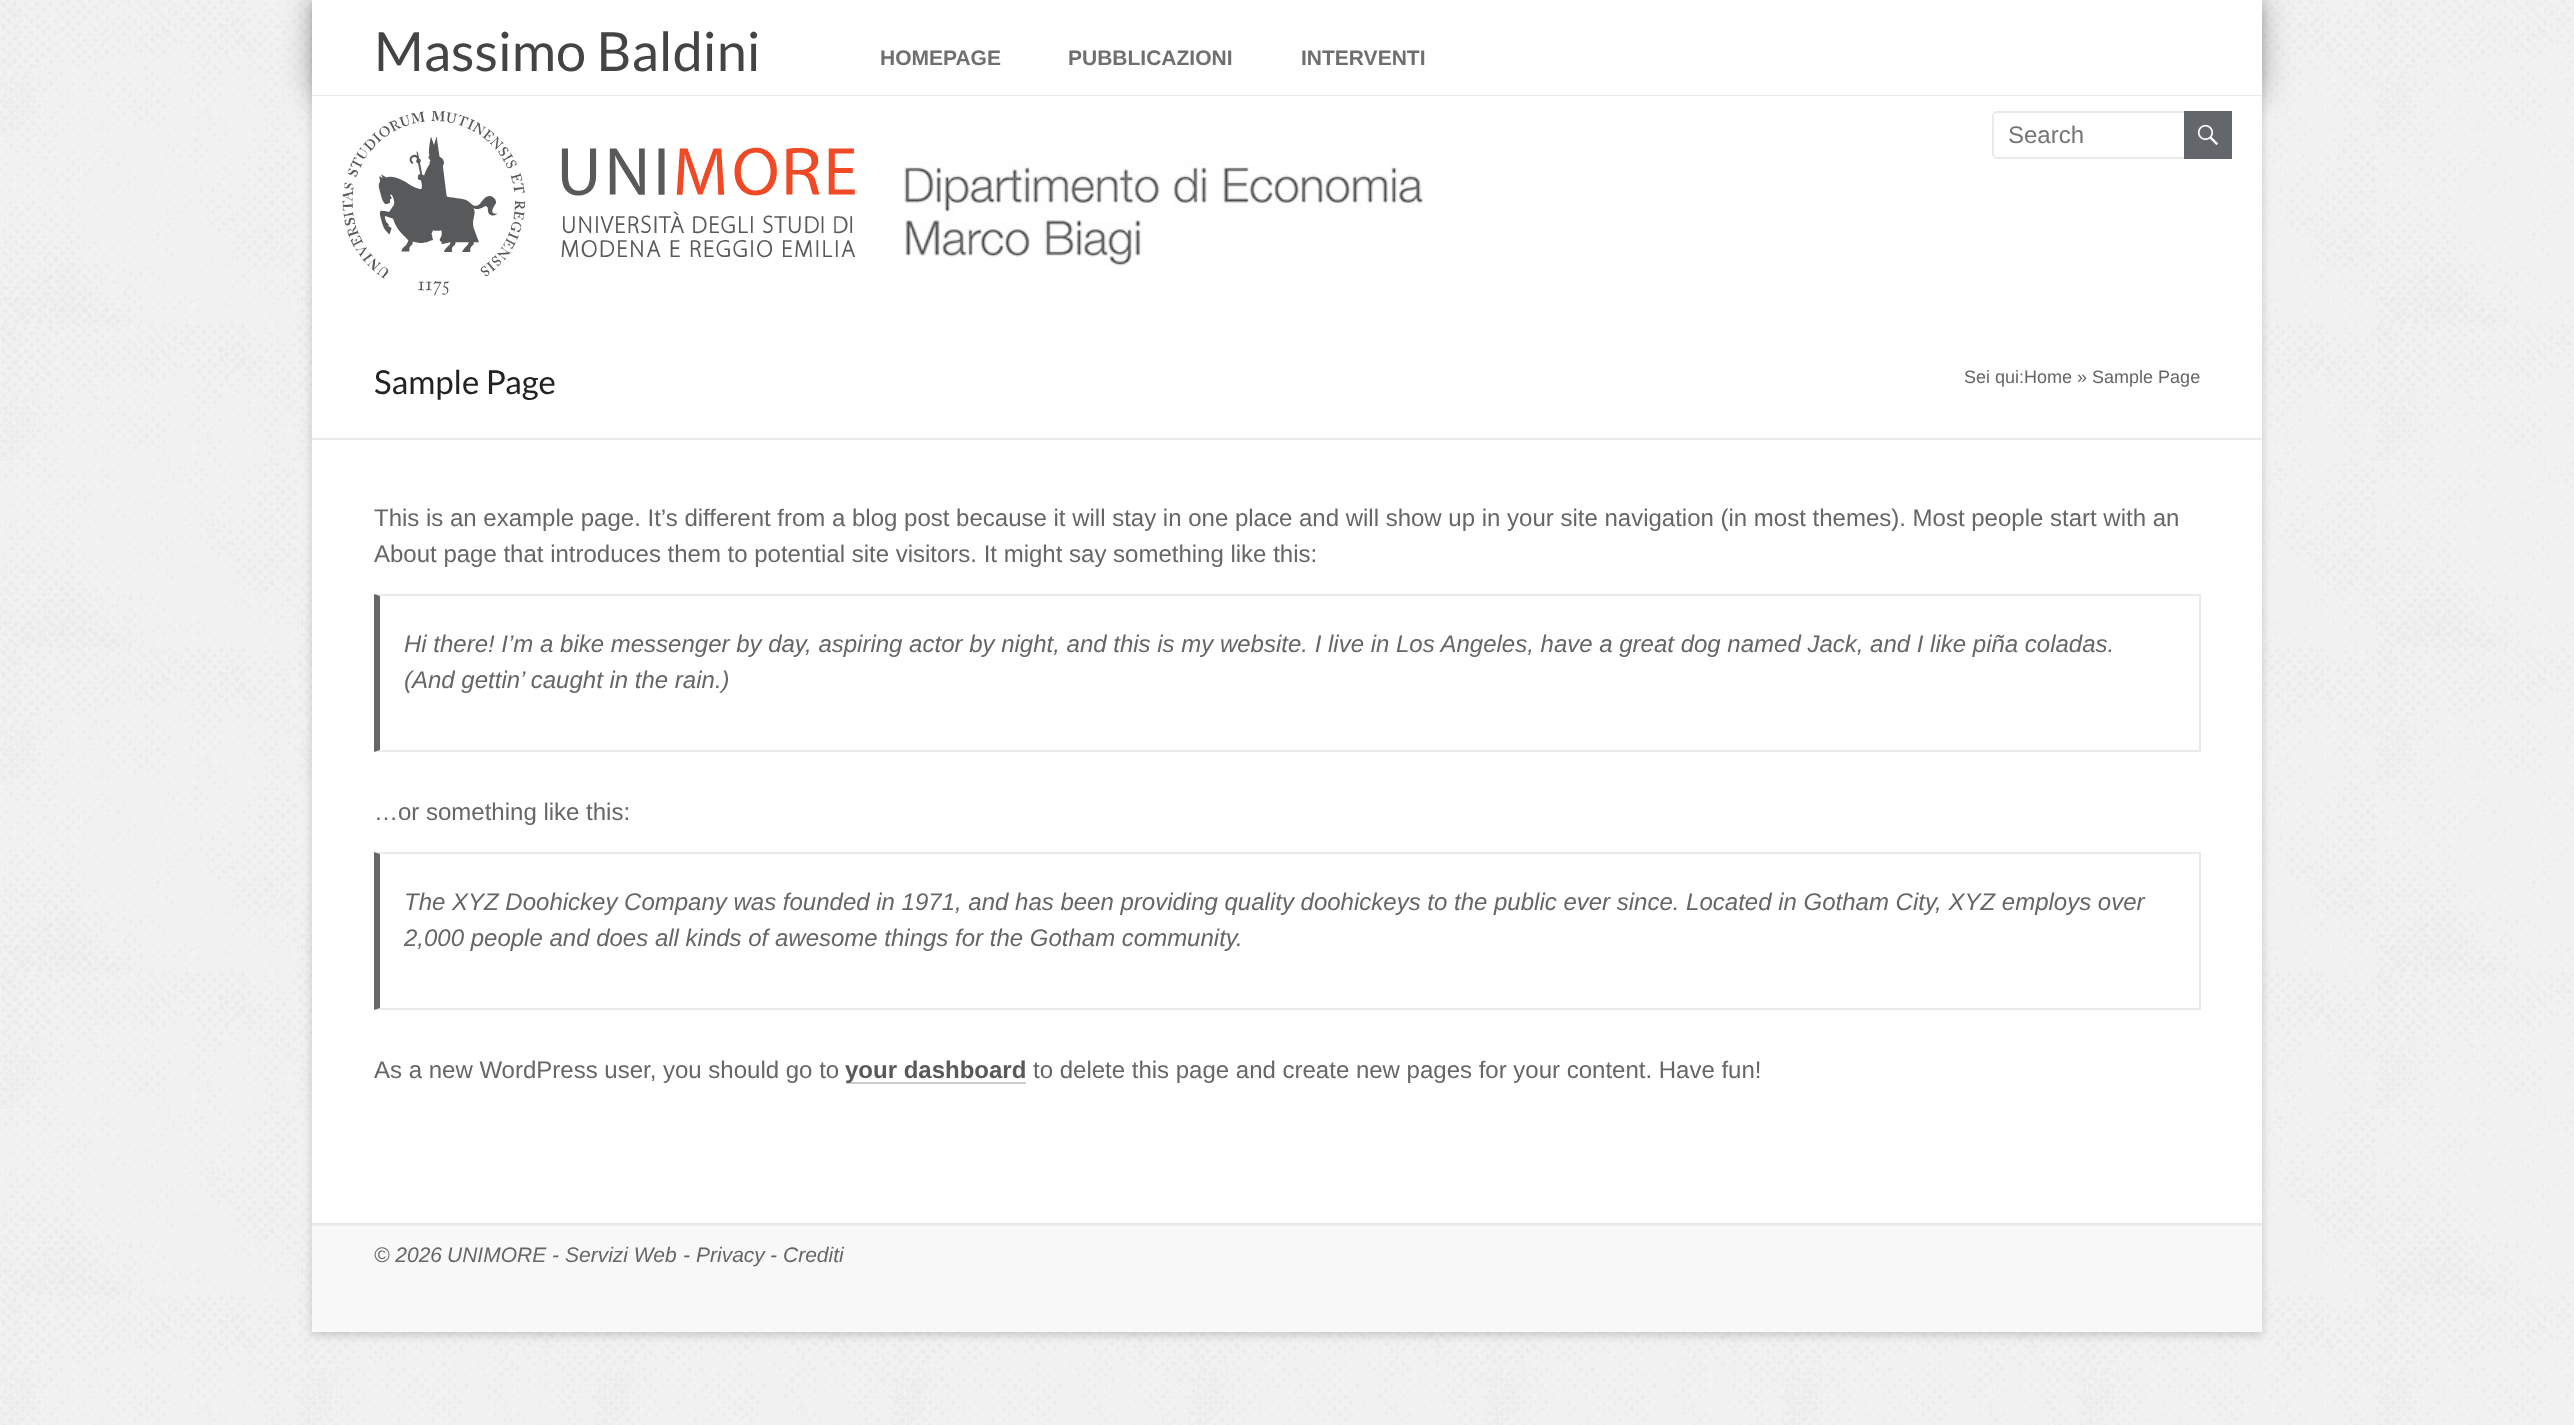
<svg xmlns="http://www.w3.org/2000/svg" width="2574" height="1425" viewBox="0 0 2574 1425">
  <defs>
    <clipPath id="clip1"><path d="M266 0H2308V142H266ZM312 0H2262V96H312Z" clip-rule="evenodd"/></clipPath>
  </defs>
  <rect width="100%" height="100%" fill="#fff"/>
  <image x="0" y="0" width="2574" height="1425" href="img/1.png"/>
  <path d="M312 3h1950v1332H312z" fill="#6464644d" filter="blur(4.5px)"/>
  <path d="M312 0h1950v1223H312z" fill="#fff"/>
  <g clip-path="url(#clip1)">
    <path d="M312 0h1950v96H312z" fill="#0000004d" filter="blur(15px)"/>
  </g>
  <path d="M312 95h1950v1H312z" fill="#eaeaea"/>
  <path d="M312 96h1950v27H312z" fill="#fff"/>
  <image x="342" y="111" width="514" height="185" href="img/2.png"/>
  <rect x="1993" y="112" width="193" height="46" rx="4" fill="none" stroke="#eaeaea" stroke-width="2"/>
  <path d="M2184 111h48v48H2184z" fill="#63666a"/>
  <image x="2197" y="124" width="21" height="21" href="img/3.png"/>
  <image x="904" y="161" width="519" height="105" href="img/4.png"/>
  <path d="M312 438h1950v2H312z" fill="#eaeaea"/>
  <path d="M374 594H2200L2199 596H380Z" fill="#eaeaea"/>
  <path d="M2199 594h2v158H2199z" fill="#eaeaea"/>
  <path d="M2200 752H374L380 750H2199Z" fill="#eaeaea"/>
  <path d="M374 752V594L380 596V750Z" fill="#666"/>
  <path d="M374 852H2200L2199 854H380Z" fill="#eaeaea"/>
  <path d="M2199 852h2v158H2199z" fill="#eaeaea"/>
  <path d="M2200 1010H374L380 1008H2199Z" fill="#eaeaea"/>
  <path d="M374 1010V852L380 854V1008Z" fill="#666"/>
  <path d="M846 1082h180v2H846z" fill="#ccc"/>
  <path d="M312 1223h1950v1H312z" fill="#e6e6e6"/>
  <path d="M312 1226h1950v106H312z" fill="#f8f8f8"/>
  <path d="M312 1224h1950v2H312z" fill="#eaeaea"/>
  <text x="374" y="71" font-family="Lato" font-size="54" fill="#444">Massimo Baldini</text>
  <g font-family="Liberation Sans" font-size="21" font-weight="bold" fill="#6f6f6f">
    <text x="880" y="65">HOMEPAGE</text>
    <text x="1068" y="65">PUBBLICAZIONI</text>
    <text x="1301" y="65">INTERVENTI</text>
  </g>
  <text x="2008" y="143" font-family="Liberation Sans" font-size="24" fill="#757575">Search</text>
  <text x="374" y="394" font-family="Lato" font-size="33" fill="#222">Sample Page</text>
  <text x="1964" y="383" font-family="Liberation Sans" font-size="18" fill="#666">Sei qui:Home » Sample Page</text>
  <g font-family="Liberation Sans" font-size="24" fill="#666">
    <text x="374" y="526">This is an example page. It’s different from a blog post because it will stay in one place and will show up in your site navigation (in most themes). Most people start with an</text>
    <text x="374" y="562">About page that introduces them to potential site visitors. It might say something like this:</text>
  </g>
  <g font-family="Liberation Sans" font-size="24" font-style="italic" fill="#666">
    <text x="404" y="652">Hi there! I’m a bike messenger by day, aspiring actor by night, and this is my website. I live in Los Angeles, have a great dog named Jack, and I like piña coladas.</text>
    <text x="404" y="688">(And gettin’ caught in the rain.)</text>
  </g>
  <text x="374" y="820" font-family="Liberation Sans" font-size="24" fill="#666">…or something like this:</text>
  <g font-family="Liberation Sans" font-size="24" font-style="italic" fill="#666">
    <text x="404" y="910">The XYZ Doohickey Company was founded in 1971, and has been providing quality doohickeys to the public ever since. Located in Gotham City, XYZ employs over</text>
    <text x="404" y="946">2,000 people and does all kinds of awesome things for the Gotham community.</text>
  </g>
  <text x="374" y="1078" font-family="Liberation Sans" font-size="24" fill="#666">As a new WordPress user, you should go to</text>
  <text x="845" y="1078" font-family="Liberation Sans" font-size="24" font-weight="bold" fill="#58595b">your dashboard</text>
  <text x="1033" y="1078" font-family="Liberation Sans" font-size="24" fill="#666">to delete this page and create new pages for your content. Have fun!</text>
  <g font-family="Liberation Sans" font-size="21" font-style="italic" fill="#666">
    <text x="374" y="1262">© 2026</text>
    <text x="447" y="1262">UNIMORE</text>
    <text x="552" y="1262">-</text>
    <text x="565" y="1262">Servizi Web</text>
    <text x="683" y="1262">-</text>
    <text x="696" y="1262">Privacy</text>
    <text x="770" y="1262">-</text>
    <text x="783" y="1262">Crediti</text>
  </g>
</svg>
